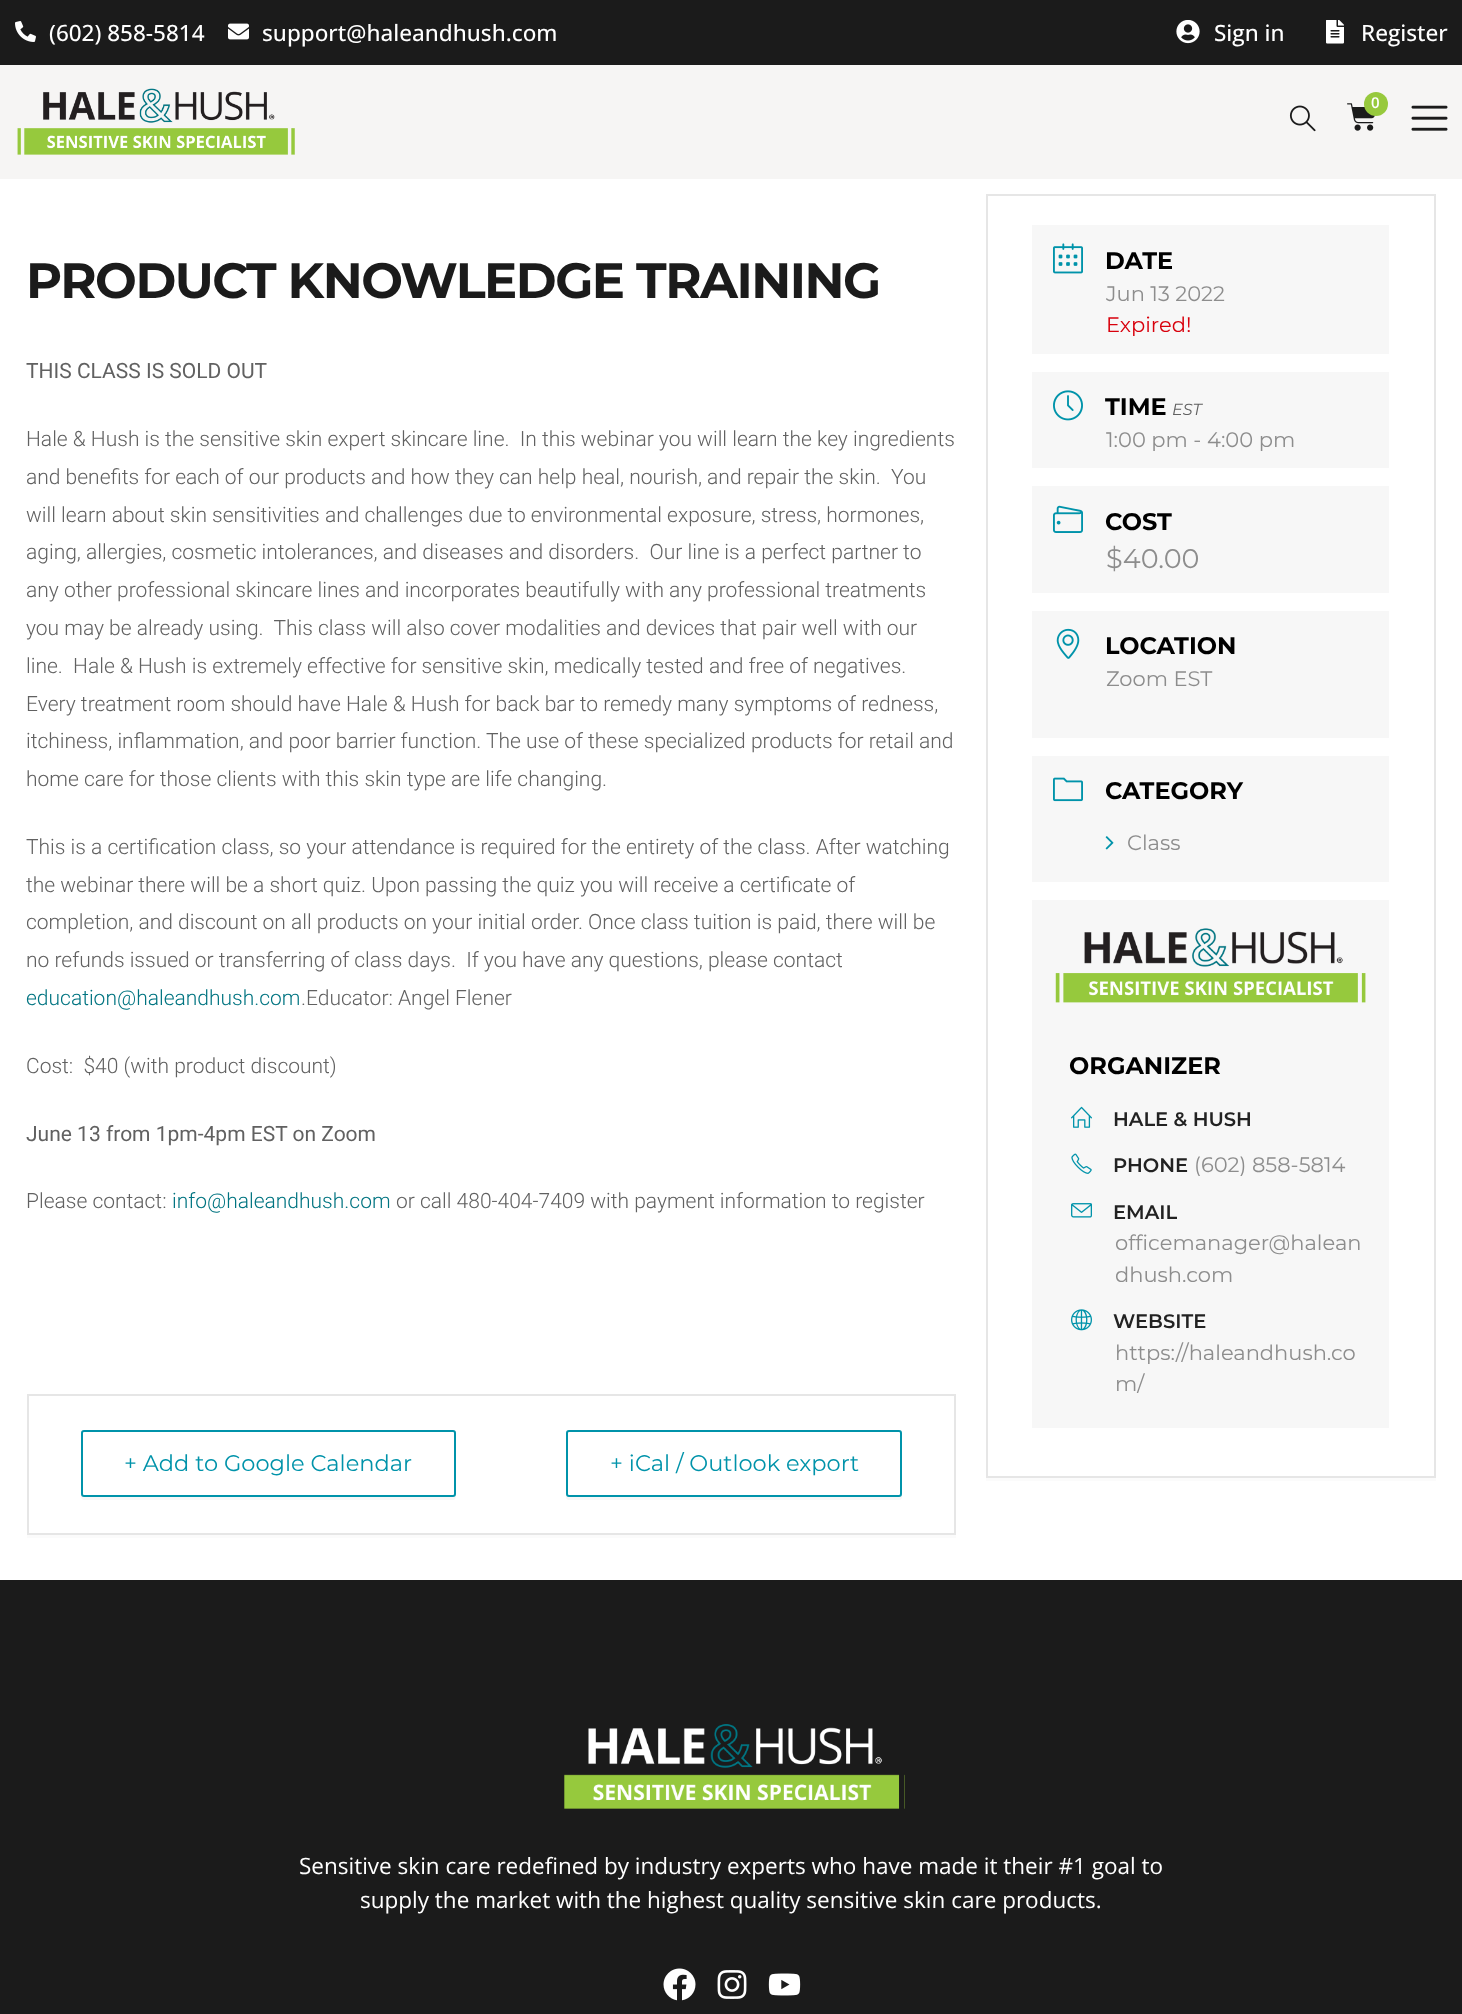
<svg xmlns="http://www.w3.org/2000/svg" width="1462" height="2014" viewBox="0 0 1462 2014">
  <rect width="100%" height="100%" fill="#fff"/>
  <path d="M0 0h1462v65H0z" fill="#1b1b1b"/>
  <image x="15" y="21" width="21" height="21" href="img/1.png"/>
  <image x="228" y="23" width="21" height="17" href="img/2.png"/>
  <image x="1176" y="20" width="24" height="24" href="img/3.png"/>
  <image x="1326" y="20" width="18" height="24" href="img/4.png"/>
  <path d="M0 65h1462v114H0z" fill="#f6f5f4"/>
  <image x="17" y="88" width="278" height="67" href="img/5.png"/>
  <image x="1347" y="103" width="28" height="28" href="img/6.png"/>
  <circle cx="1376" cy="104" r="12" fill="#97c93d"/>
  <image x="1289" y="105" width="27" height="27" href="img/7.png"/>
  <image x="1411" y="105" width="37" height="26" href="img/8.png"/>
  <path d="M27 1534V1538H956V1397V1534Z" fill="#fbfbfb"/>
  <path d="M28 1395h927v139H28z" fill="none" stroke="#e6e6e6" stroke-width="2"/>
  <path d="M81 1494C81 1496 81 1500 84 1500H453C456 1500 456 1496 456 1494C456 1496 455 1497 453 1497H84C82 1497 81 1496 81 1494Z" fill="#f7f7f7"/>
  <rect x="82" y="1431" width="373" height="65" rx="2" fill="none" stroke="#0093aa" stroke-width="2"/>
  <path d="M566 1496V1497C566 1499 567 1500 569 1500H899C901 1500 902 1499 902 1497V1436V1434V1494C902 1496 900 1497 898 1497H568C567 1497 567 1496 566 1496Z" fill="#f7f7f7"/>
  <rect x="567" y="1431" width="334" height="65" rx="2" fill="#fff" stroke="#0093aa" stroke-width="2"/>
  <path d="M986 1478V1481H1436V197V1478Z" fill="#fbfbfb"/>
  <path d="M987 195h448v1282H987z" fill="none" stroke="#e6e6e6" stroke-width="2"/>
  <path d="M1032 225h357v129H1032z" fill="#f7f7f7"/>
  <image x="1053" y="243" width="30" height="31" href="img/9.png"/>
  <path d="M1032 372h357v96H1032z" fill="#f7f7f7"/>
  <image x="1053" y="390" width="30" height="31" href="img/10.png"/>
  <path d="M1032 486h357v107H1032z" fill="#f7f7f7"/>
  <image x="1053" y="505" width="30" height="28" href="img/11.png"/>
  <path d="M1032 611h357v127H1032z" fill="#f7f7f7"/>
  <image x="1056" y="628" width="24" height="31" href="img/12.png"/>
  <path d="M1032 756h357v126H1032z" fill="#f7f7f7"/>
  <image x="1053" y="777" width="30" height="25" href="img/13.png"/>
  <image x="1105" y="836" width="9" height="14" href="img/14.png"/>
  <path d="M1032 900h357v528H1032z" fill="#f7f7f7"/>
  <image x="1055" y="928" width="311" height="75" href="img/15.png"/>
  <image x="1071" y="1106" width="21" height="22" href="img/16.png"/>
  <image x="1071" y="1153" width="21" height="21" href="img/17.png"/>
  <image x="1071" y="1203" width="21" height="15" href="img/18.png"/>
  <image x="1071" y="1309" width="21" height="22" href="img/19.png"/>
  <path d="M0 1580h1462v434H0z" fill="#1b1b1b"/>
  <image x="564" y="1724" width="341" height="85" href="img/20.png"/>
  <image x="663" y="1968" width="33" height="33" href="img/21.png"/>
  <image x="717" y="1970" width="30" height="29" href="img/22.png"/>
  <image x="768" y="1973" width="33" height="23" href="img/23.png"/>
  <g font-family="Open Sans" font-size="22.5" font-weight="500" fill="#fff">
    <text x="49" y="41">(602) 858-5814</text>
    <text x="262" y="41">support@haleandhush.com</text>
    <text x="1214" y="41">Sign in</text>
    <text x="1361" y="41">Register</text>
  </g>
  <text x="1371" y="108" font-family="Open Sans" font-size="15" font-weight="600" fill="#fff">0</text>
  <text x="26" y="298" font-family="Montserrat" font-size="49.5" font-weight="bold" letter-spacing="-1.5" fill="#1b1b1b">PRODUCT KNOWLEDGE TRAINING</text>
  <text x="26" y="378" font-family="Roboto" font-size="21" fill="#616161">THIS CLASS IS SOLD OUT</text>
  <g font-family="Roboto" font-size="21" font-weight="300" fill="#616161">
    <text x="26" y="446" xml:space="preserve">Hale &amp; Hush is the sensitive skin expert skincare line.  In this webinar you will learn the key ingredients</text>
    <text x="26" y="484" xml:space="preserve">and benefits for each of our products and how they can help heal, nourish, and repair the skin.  You</text>
    <text x="26" y="522">will learn about skin sensitivities and challenges due to environmental exposure, stress, hormones,</text>
    <text x="26" y="559" xml:space="preserve">aging, allergies, cosmetic intolerances, and diseases and disorders.  Our line is a perfect partner to</text>
    <text x="26" y="597">any other professional skincare lines and incorporates beautifully with any professional treatments</text>
    <text x="26" y="635" xml:space="preserve">you may be already using.  This class will also cover modalities and devices that pair well with our</text>
    <text x="26" y="673" xml:space="preserve">line.  Hale &amp; Hush is extremely effective for sensitive skin, medically tested and free of negatives.</text>
    <text x="26" y="711">Every treatment room should have Hale &amp; Hush for back bar to remedy many symptoms of redness,</text>
    <text x="26" y="748">itchiness, inflammation, and poor barrier function. The use of these specialized products for retail and</text>
    <text x="26" y="786">home care for those clients with this skin type are life changing.</text>
    <text x="26" y="854">This is a certification class, so your attendance is required for the entirety of the class. After watching</text>
    <text x="26" y="892">the webinar there will be a short quiz. Upon passing the quiz you will receive a certificate of</text>
    <text x="26" y="929">completion, and discount on all products on your initial order. Once class tuition is paid, there will be</text>
    <text x="26" y="967" xml:space="preserve">no refunds issued or transferring of class days.  If you have any questions, please contact</text>
  </g>
  <text x="26" y="1005" font-family="Roboto" font-size="21" font-weight="300" fill="#007481">education@haleandhush.com</text>
  <g font-family="Roboto" font-size="21" font-weight="300" fill="#616161">
    <text x="301" y="1005">.Educator: Angel Flener</text>
    <text x="26" y="1073" xml:space="preserve">Cost:  $40 (with product discount)</text>
  </g>
  <text x="26" y="1141" font-family="Roboto" font-size="21" fill="#616161">June 13 from 1pm-4pm EST on Zoom</text>
  <text x="26" y="1208" font-family="Roboto" font-size="21" font-weight="300" fill="#616161">Please contact:</text>
  <text x="172" y="1208" font-family="Roboto" font-size="21" font-weight="300" fill="#007481">info@haleandhush.com</text>
  <text x="396" y="1208" font-family="Roboto" font-size="21" font-weight="300" fill="#616161">or call 480-404-7409 with payment information to register</text>
  <g font-family="Montserrat" font-size="22.5" fill="#0093aa">
    <text x="124" y="1471">+ Add to Google Calendar</text>
    <text x="610" y="1471">+ iCal / Outlook export</text>
  </g>
  <text x="1105" y="269" font-family="Montserrat" font-size="24" font-weight="bold" fill="#000">DATE</text>
  <text x="1106" y="301" font-family="Montserrat" font-size="21" fill="#8d8d8d">Jun 13 2022</text>
  <text x="1106" y="332" font-family="Montserrat" font-size="21" fill="#d8000c">Expired!</text>
  <text x="1105" y="415" font-family="Montserrat" font-size="24" font-weight="bold" fill="#000">TIME</text>
  <text x="1172" y="415" font-family="Montserrat" font-size="16" font-style="italic" fill="#616161">EST</text>
  <text x="1106" y="447" font-family="Montserrat" font-size="21" fill="#8d8d8d">1:00 pm - 4:00 pm</text>
  <text x="1105" y="530" font-family="Montserrat" font-size="24" font-weight="bold" fill="#000">COST</text>
  <text x="1106" y="568" font-family="Montserrat" font-size="27" fill="#8d8d8d">$40.00</text>
  <text x="1105" y="654" font-family="Montserrat" font-size="24" font-weight="bold" fill="#000">LOCATION</text>
  <text x="1106" y="686" font-family="Montserrat" font-size="21" fill="#8d8d8d">Zoom EST</text>
  <text x="1105" y="799" font-family="Montserrat" font-size="24" font-weight="bold" fill="#000">CATEGORY</text>
  <text x="1127" y="850" font-family="Montserrat" font-size="21" fill="#8d8d8d">Class</text>
  <text x="1069" y="1074" font-family="Montserrat" font-size="24" font-weight="bold" fill="#000">ORGANIZER</text>
  <g font-family="Montserrat" font-size="19.5" font-weight="600" fill="#222">
    <text x="1113" y="1126">HALE &amp; HUSH</text>
    <text x="1113" y="1172">PHONE</text>
  </g>
  <text x="1194" y="1172" font-family="Montserrat" font-size="21" fill="#8d8d8d">(602) 858-5814</text>
  <text x="1113" y="1219" font-family="Montserrat" font-size="19.5" font-weight="600" fill="#222">EMAIL</text>
  <g font-family="Montserrat" font-size="21" fill="#8d8d8d">
    <text x="1115" y="1250">officemanager@halean</text>
    <text x="1115" y="1282">dhush.com</text>
  </g>
  <text x="1113" y="1328" font-family="Montserrat" font-size="19.5" font-weight="600" fill="#222">WEBSITE</text>
  <g font-family="Montserrat" font-size="21" fill="#8d8d8d">
    <text x="1115" y="1360">https://haleandhush.co</text>
    <text x="1115" y="1391">m/</text>
  </g>
  <g font-family="Open Sans" font-size="22.5" fill="#fff">
    <text x="299" y="1874">Sensitive skin care redefined by industry experts who have made it their #1 goal to</text>
    <text x="360" y="1908">supply the market with the highest quality sensitive skin care products.</text>
  </g>
</svg>
